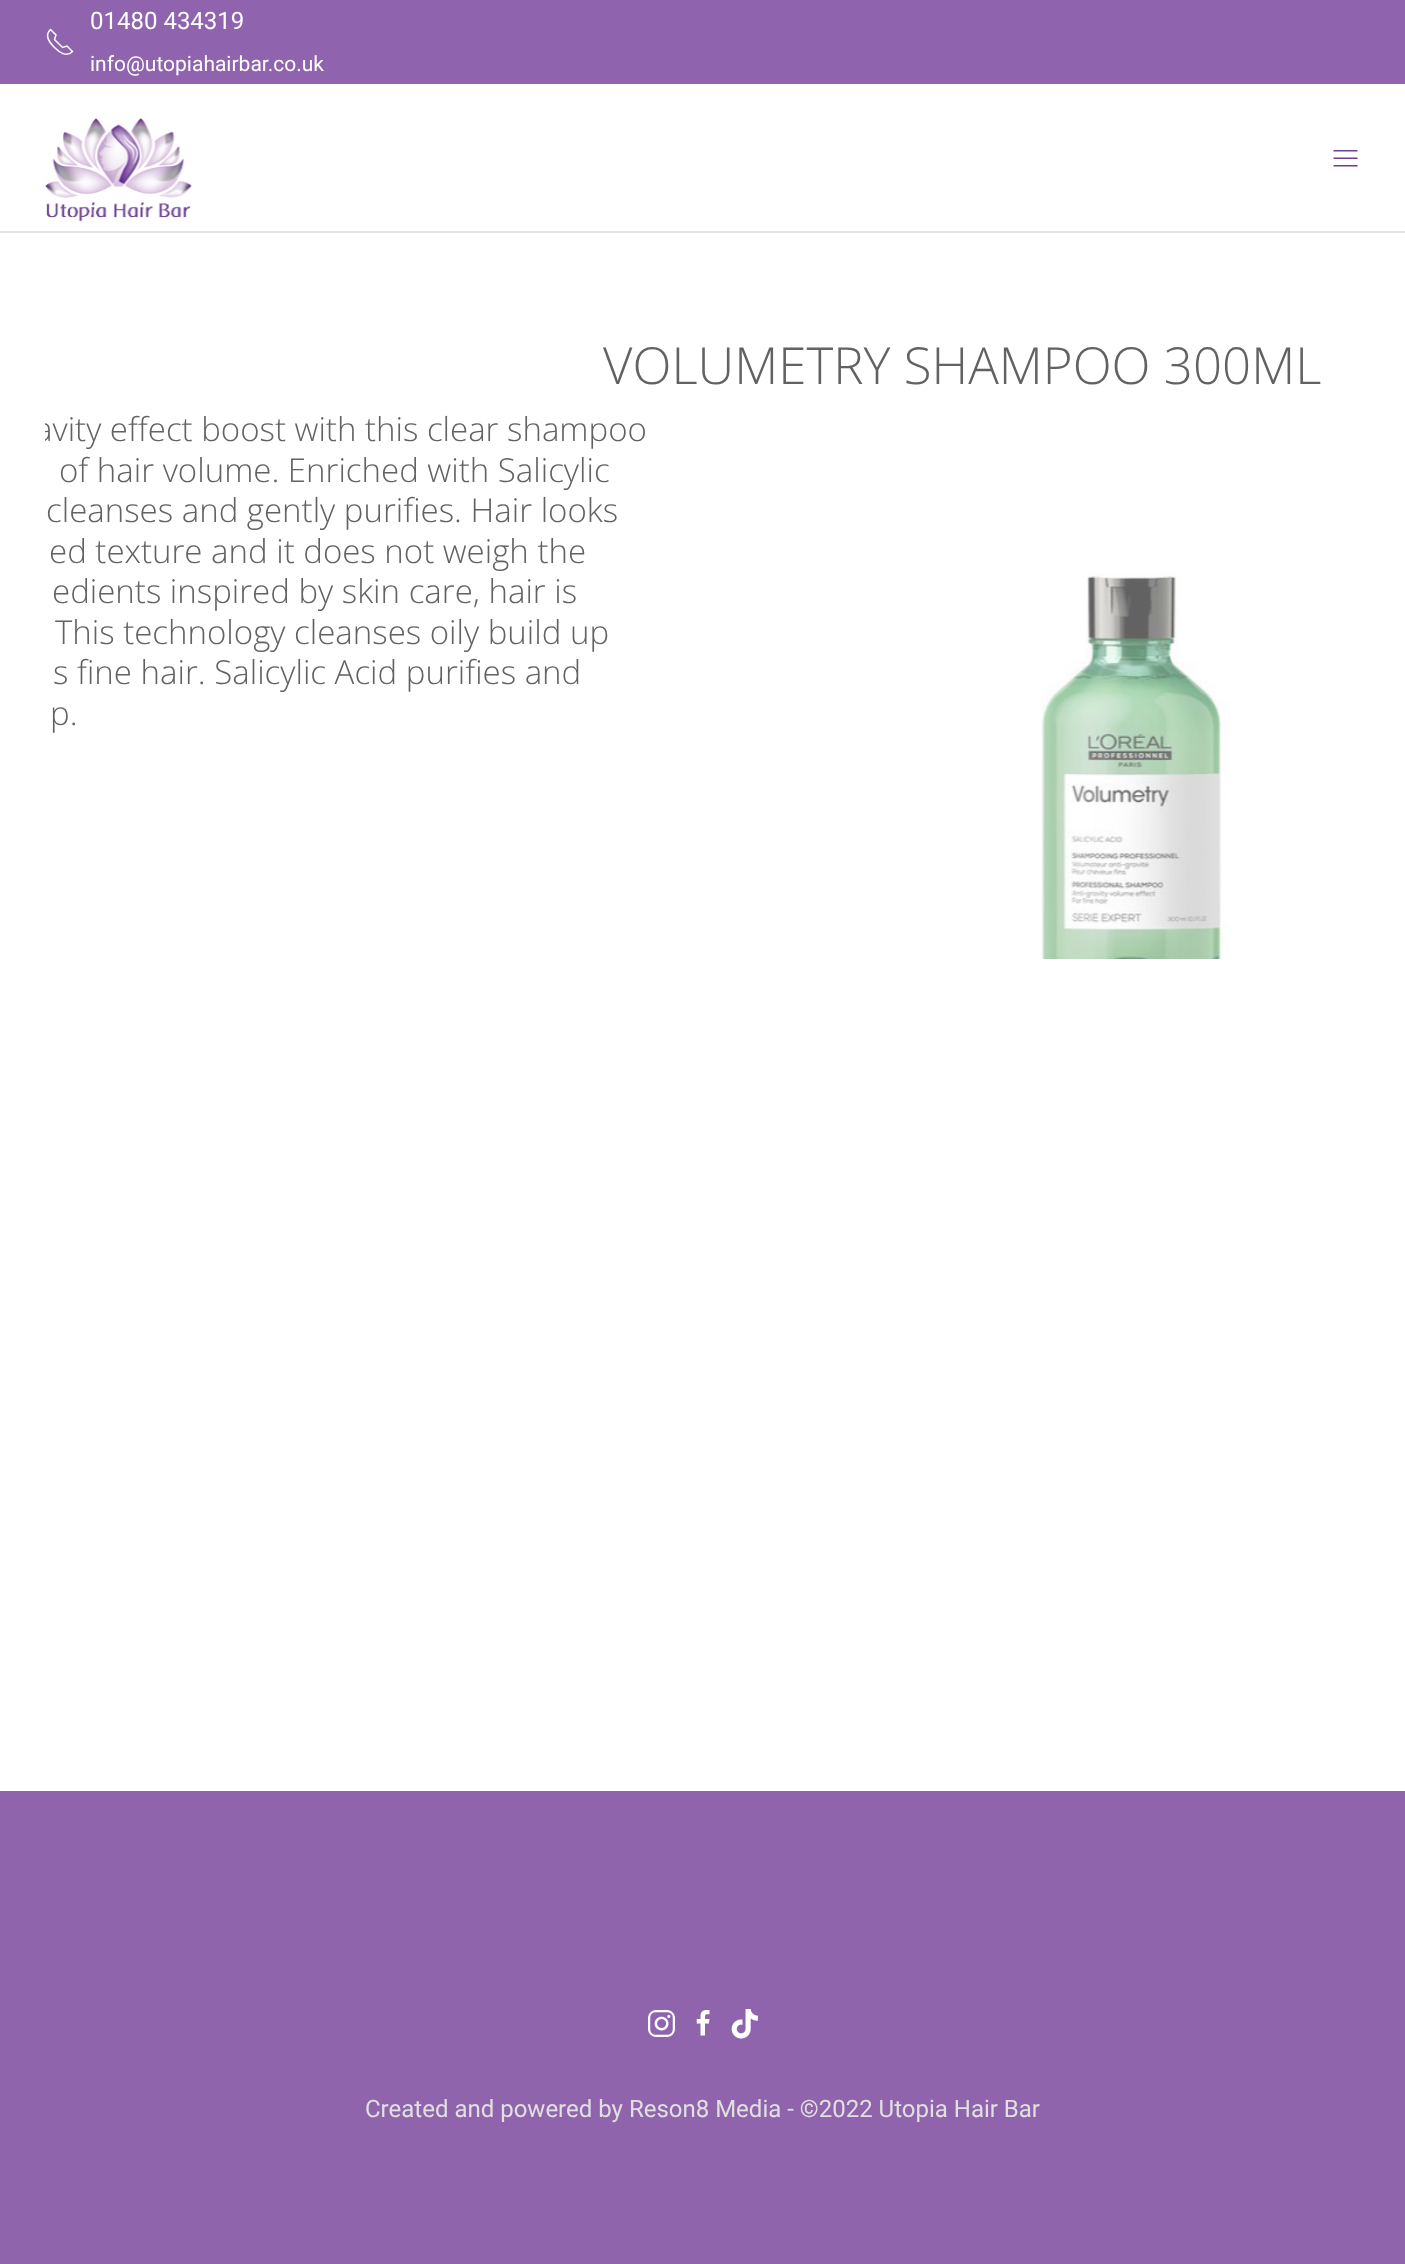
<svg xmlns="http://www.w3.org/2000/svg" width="1405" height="2264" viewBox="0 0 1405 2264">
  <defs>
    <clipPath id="clip1"><path d="M45 323h1316v636H45z"/></clipPath>
  </defs>
  <rect width="100%" height="100%" fill="#fff"/>
  <path d="M0 0h1405v84H0z" fill="#8f63ad"/>
  <path d="M54.5 47.5C59 52 66.5 58 72.5 51.5L67 46L62.5 47.5L54.5 39.5L56 35L50.5 29.5C44 35.5 49.5 42.5 54.5 47.5" fill="none" stroke="#fff" stroke-width="1.5"/>
  <path d="M0 231h1405v2H0z" fill="#e5e5e5"/>
  <image x="45" y="118" width="147" height="104" href="img/1.png"/>
  <image x="1333" y="150" width="25" height="17" href="img/2.png"/>
  <image x="1041" y="573" width="189" height="386" href="img/3.png"/>
  <path d="M0 1791h1405v473H0z" fill="#8f64ad"/>
  <image x="648" y="2010" width="27" height="27" href="img/4.png"/>
  <image x="696" y="2010" width="14" height="26" href="img/5.png"/>
  <image x="731" y="2009" width="27" height="30" href="img/6.png"/>
  <text x="90" y="29" font-family="Roboto" font-size="24" fill="#fff">01480 434319</text>
  <text x="90" y="71" font-family="Roboto" font-size="21" fill="#fff">info@utopiahairbar.co.uk</text>
  <text x="603" y="384" font-family="Open Sans" font-size="51" font-weight="300" fill="#626262">VOLUMETRY SHAMPOO 300ML</text>
  <g clip-path="url(#clip1)">
    <text x="35" y="441" font-family="Open Sans" font-size="33" font-weight="300" fill="#626262">avity effect boost with this clear shampoo</text>
  </g>
  <g font-family="Open Sans" font-size="33" font-weight="300" fill="#626262">
    <text x="59" y="482">of hair volume. Enriched with Salicylic</text>
    <text x="46" y="522">cleanses and gently purifies. Hair looks</text>
    <text x="49" y="563">ed texture and it does not weigh the</text>
    <text x="52" y="603">edients inspired by skin care, hair is</text>
    <text x="55" y="644">This technology cleanses oily build up</text>
    <text x="53" y="684">s fine hair. Salicylic Acid purifies and</text>
    <text x="50" y="725">p.</text>
  </g>
  <text x="365" y="2117" font-family="Roboto" font-size="24" fill="#e0e0e0">Created and powered by Reson8 Media - ©2022 Utopia Hair Bar</text>
</svg>
